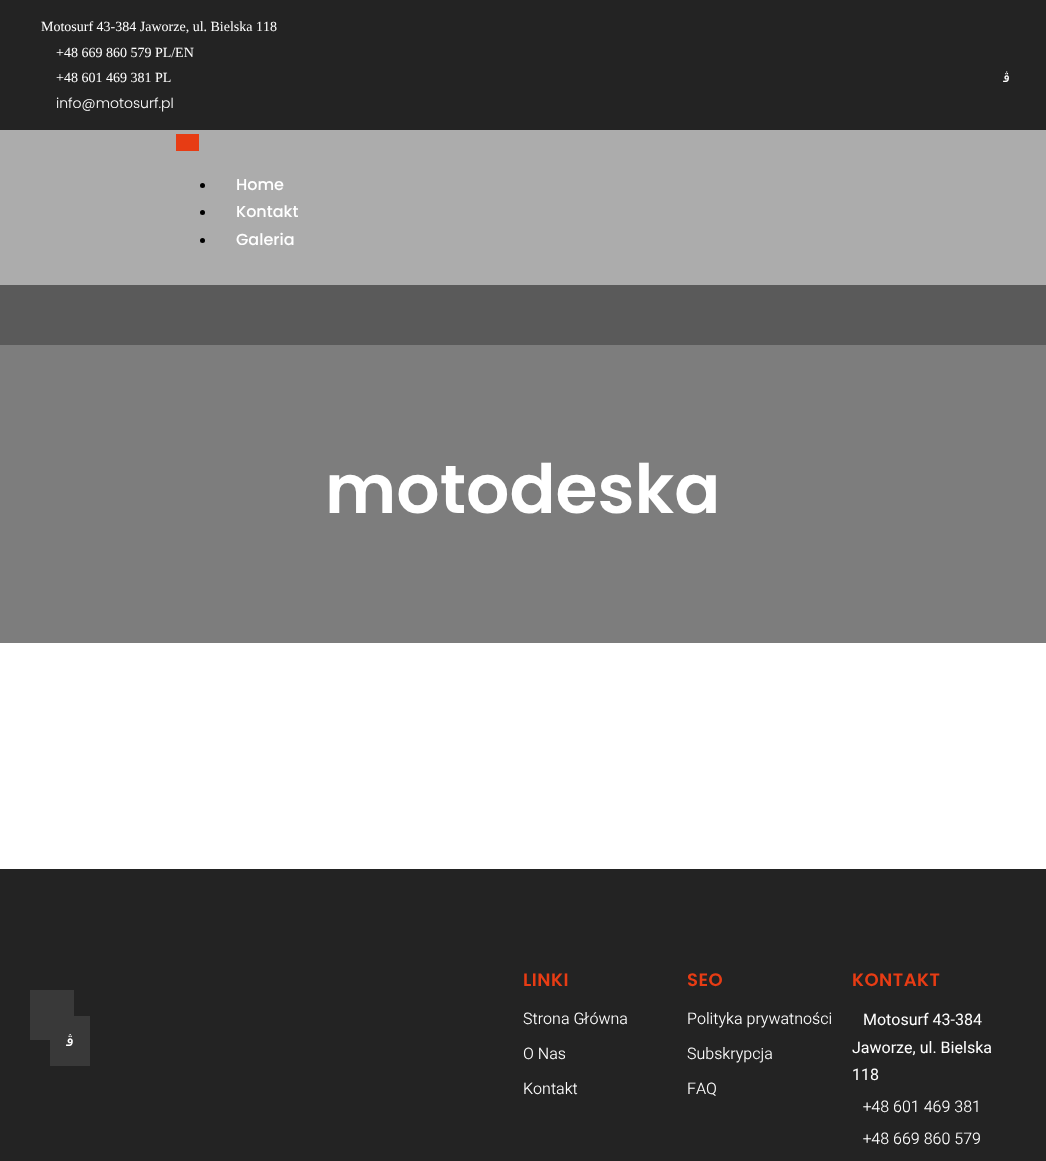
<svg xmlns="http://www.w3.org/2000/svg" width="1046" height="1161" viewBox="0 0 1046 1161">
  <style>*{font-kerning:none!important;font-variant-ligatures:none!important}</style>
  <rect width="100%" height="100%" fill="#acacac"/>
  <path d="M0 0h1046v130H0z" fill="#232323"/>
  <path d="M176 134h23v17H176z" fill="#e73c14"/>
  <circle cx="202.5" cy="185.5" r="2.5" fill="#000"/>
  <circle cx="202.5" cy="212.5" r="2.5" fill="#000"/>
  <circle cx="202.5" cy="240.5" r="2.5" fill="#000"/>
  <path d="M0 345h1046v298H0z" fill="#7d7d7d"/>
  <path d="M0 285h1046v60H0z" fill="#5a5a5a"/>
  <path d="M0 643h1046v226H0z" fill="#fff"/>
  <path d="M0 869h1046v292H0z" fill="#232323"/>
  <path d="M30 990h44v50H30z" fill="#393939"/>
  <path d="M50 1016h40v50H50z" fill="#393939"/>
  <g font-family="Liberation Serif" font-size="14" fill="#fff">
    <text x="41" y="31">Motosurf 43-384 Jaworze, ul. Bielska 118</text>
    <text x="56" y="57">+48 669 860 579 PL/EN</text>
    <text x="56" y="82">+48 601 469 381 PL</text>
  </g>
  <text x="56" y="108" font-family="Poppins" font-size="14" font-weight="300" fill="#fff">info@motosurf.pl</text>
  <text x="1010" y="82" font-family="DejaVu Sans" font-size="14" direction="rtl" fill="#fff">ﭬ</text>
  <g font-family="Poppins" font-size="16" font-weight="500" fill="#fff">
    <text x="236" y="190">Home</text>
    <text x="236" y="217">Kontakt</text>
    <text x="236" y="245">Galeria</text>
  </g>
  <text x="325" y="513" font-family="Poppins" font-size="68" font-weight="600" fill="#fff">motodeska</text>
  <text x="74" y="1046" font-family="DejaVu Sans" font-size="16" direction="rtl" fill="#fff">ﭬ</text>
  <text x="523" y="986" font-family="Poppins" font-size="18" font-weight="600" letter-spacing="0.5" fill="#e73c14">LINKI</text>
  <g font-family="Heebo" font-size="16" font-weight="300" fill="#fff">
    <text x="523" y="1024">Strona Główna</text>
    <text x="523" y="1059">O Nas</text>
    <text x="523" y="1094">Kontakt</text>
  </g>
  <text x="687" y="986" font-family="Poppins" font-size="18" font-weight="600" letter-spacing="0.5" fill="#e73c14">SEO</text>
  <g font-family="Heebo" font-size="16" font-weight="300" fill="#fff">
    <text x="687" y="1024">Polityka prywatności</text>
    <text x="687" y="1059">Subskrypcja</text>
    <text x="687" y="1094">FAQ</text>
  </g>
  <text x="852" y="986" font-family="Poppins" font-size="18" font-weight="600" letter-spacing="0.5" fill="#e73c14">KONTAKT</text>
  <g font-family="Heebo" font-size="16" fill="#fff">
    <text x="863" y="1025">Motosurf 43-384</text>
    <text x="852" y="1053">Jaworze, ul. Bielska</text>
    <text x="852" y="1080">118</text>
  </g>
  <g font-family="Heebo" font-size="16" font-weight="300" fill="#fff">
    <text x="863" y="1112">+48 601 469 381</text>
    <text x="863" y="1144">+48 669 860 579</text>
  </g>
</svg>
